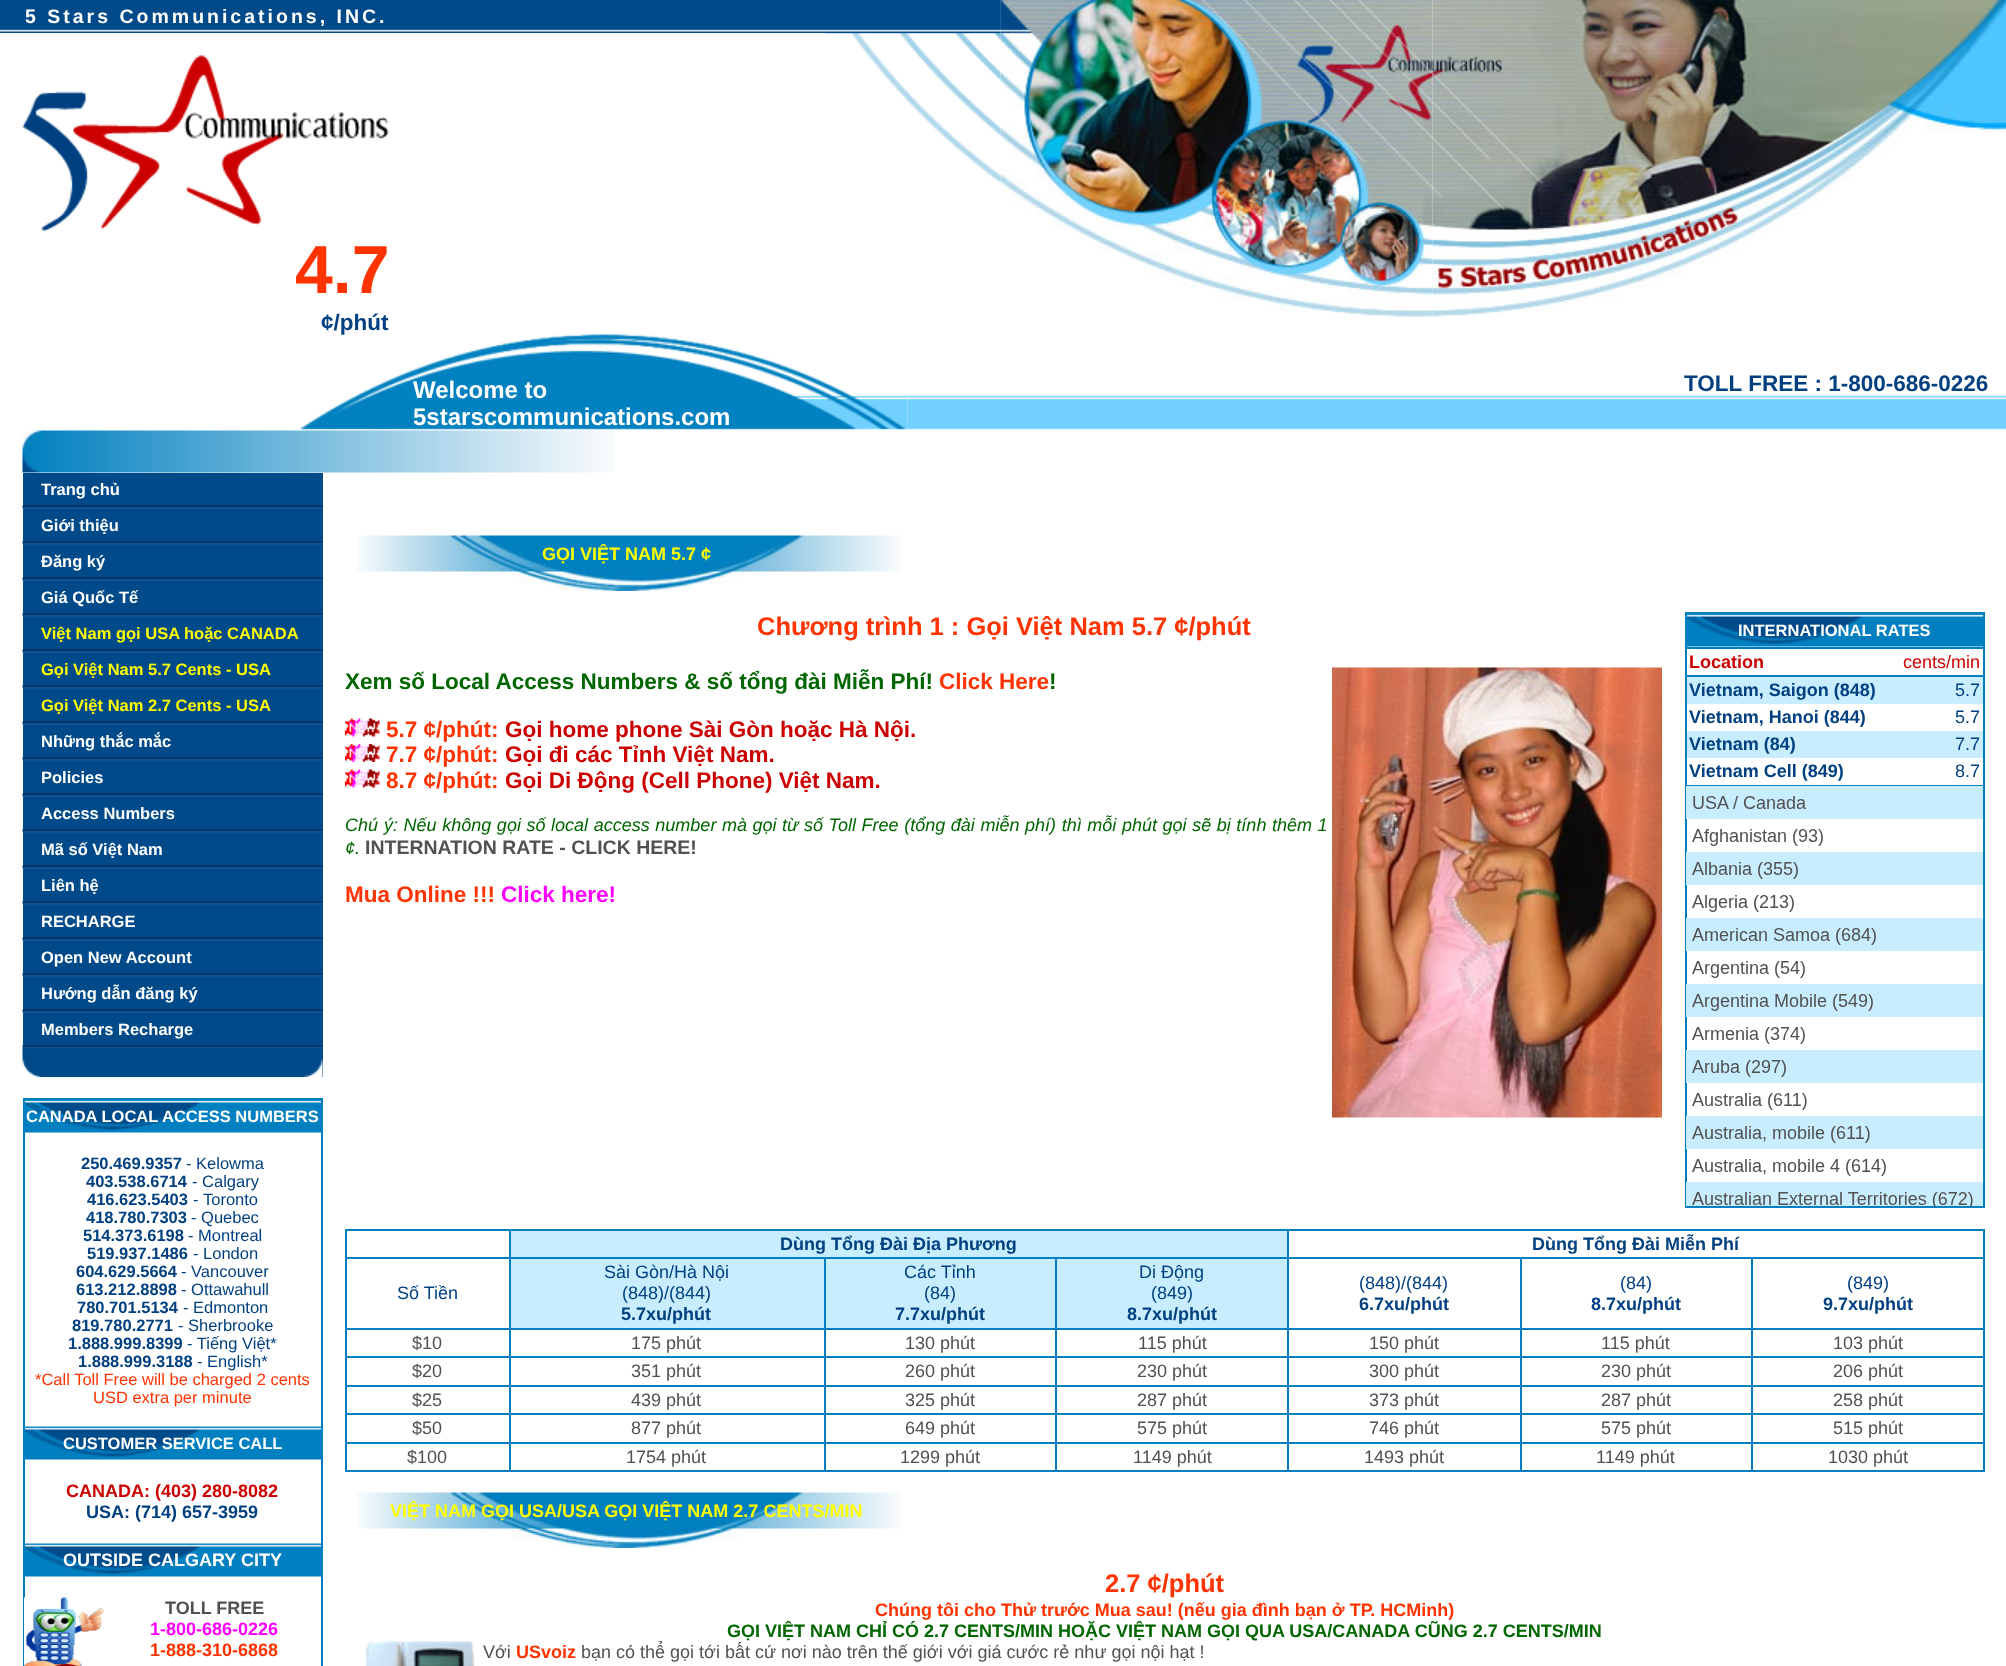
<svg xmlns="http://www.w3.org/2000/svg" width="2006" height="1666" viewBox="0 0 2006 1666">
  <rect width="100%" height="100%" fill="#fff"/>
  <image x="825" y="0" width="176" height="183" href="img/1.png"/>
  <image x="0" y="0" width="1001" height="33" href="img/2.png"/>
  <image x="22" y="55" width="367" height="176" href="img/3.png"/>
  <image x="1000" y="0" width="433" height="317" href="img/4.png"/>
  <image x="1432" y="0" width="574" height="317" href="img/5.png"/>
  <image x="300" y="334" width="608" height="96" href="img/6.png"/>
  <image x="907" y="395" width="1099" height="35" href="img/7.png"/>
  <image x="22" y="430" width="592" height="43" href="img/8.png"/>
  <path d="M23 473h300v604H23z" fill="#004a89"/>
  <image x="22" y="505" width="301" height="4" href="img/9.png"/>
  <image x="22" y="541" width="301" height="4" href="img/9.png"/>
  <image x="22" y="577" width="301" height="4" href="img/9.png"/>
  <image x="22" y="613" width="301" height="4" href="img/9.png"/>
  <image x="22" y="649" width="301" height="4" href="img/9.png"/>
  <image x="22" y="685" width="301" height="4" href="img/9.png"/>
  <image x="22" y="721" width="301" height="4" href="img/9.png"/>
  <image x="22" y="757" width="301" height="4" href="img/9.png"/>
  <image x="22" y="793" width="301" height="4" href="img/9.png"/>
  <image x="22" y="829" width="301" height="4" href="img/9.png"/>
  <image x="22" y="865" width="301" height="4" href="img/9.png"/>
  <image x="22" y="901" width="301" height="4" href="img/9.png"/>
  <image x="22" y="937" width="301" height="4" href="img/9.png"/>
  <image x="22" y="973" width="301" height="4" href="img/9.png"/>
  <image x="22" y="1009" width="301" height="4" href="img/9.png"/>
  <image x="22" y="1045" width="301" height="4" href="img/9.png"/>
  <image x="22" y="1048" width="301" height="29" href="img/10.png"/>
  <path d="M23 1098h300v2H23z" fill="#0080c0"/>
  <path d="M321 1098h2v568H321z" fill="#0080c0"/>
  <path d="M23 1098h2v568H23z" fill="#0080c0"/>
  <image x="25" y="1100" width="296" height="33" href="img/11.png"/>
  <image x="25" y="1426" width="296" height="34" href="img/12.png"/>
  <image x="25" y="1543" width="296" height="34" href="img/12.png"/>
  <image x="24" y="1597" width="80" height="69" href="img/13.png"/>
  <image x="357" y="535" width="545" height="56" href="img/14.png"/>
  <image x="1332" y="667" width="330" height="451" href="img/15.png"/>
  <image x="345" y="718" width="35" height="19" href="img/16.png"/>
  <image x="345" y="744" width="35" height="18" href="img/17.png"/>
  <image x="345" y="769" width="35" height="19" href="img/16.png"/>
  <path d="M1685 612h300v2H1685z" fill="#0080c0"/>
  <path d="M1983 612h2v596H1983z" fill="#0080c0"/>
  <path d="M1685 1206h300v2H1685z" fill="#0080c0"/>
  <path d="M1685 612h2v596H1685z" fill="#0080c0"/>
  <image x="1687" y="614" width="296" height="33" href="img/11.png"/>
  <path d="M1685 647h300v2H1685z" fill="#0080c0"/>
  <path d="M1685 675h300v2H1685z" fill="#0080c0"/>
  <path d="M1687 677h296v27H1687z" fill="#c8edff"/>
  <path d="M1687 731h296v27H1687z" fill="#c8edff"/>
  <path d="M1685 785h300v2H1685z" fill="#0080c0"/>
  <image x="1686" y="786" width="297" height="420" href="img/18.png"/>
  <path d="M345 1229h1640v2H345z" fill="#0080c0"/>
  <path d="M1983 1229h2v243H1983z" fill="#0080c0"/>
  <path d="M345 1470h1640v2H345z" fill="#0080c0"/>
  <path d="M345 1229h2v243H345z" fill="#0080c0"/>
  <path d="M511 1231h776v26H511z" fill="#c8edff"/>
  <path d="M1751 1257h234v2H1751z" fill="#0080c0"/>
  <path d="M1751 1328h234v2H1751z" fill="#0080c0"/>
  <path d="M1751 1356h234v2H1751z" fill="#0080c0"/>
  <path d="M1751 1385h234v2H1751z" fill="#0080c0"/>
  <path d="M1751 1413h234v2H1751z" fill="#0080c0"/>
  <path d="M1751 1442h234v2H1751z" fill="#0080c0"/>
  <path d="M1751 1442h2v30H1751z" fill="#0080c0"/>
  <path d="M1520 1442h232v2H1520z" fill="#0080c0"/>
  <path d="M1751 1413h2v30H1751z" fill="#0080c0"/>
  <path d="M1520 1413h232v2H1520z" fill="#0080c0"/>
  <path d="M1751 1385h2v30H1751z" fill="#0080c0"/>
  <path d="M1520 1385h232v2H1520z" fill="#0080c0"/>
  <path d="M1751 1356h2v30H1751z" fill="#0080c0"/>
  <path d="M1520 1356h232v2H1520z" fill="#0080c0"/>
  <path d="M1751 1328h2v30H1751z" fill="#0080c0"/>
  <path d="M1520 1328h232v2H1520z" fill="#0080c0"/>
  <path d="M1751 1257h2v72H1751z" fill="#0080c0"/>
  <path d="M1520 1257h232v2H1520z" fill="#0080c0"/>
  <path d="M1520 1442h2v30H1520z" fill="#0080c0"/>
  <path d="M1287 1442h234v2H1287z" fill="#0080c0"/>
  <path d="M1520 1413h2v30H1520z" fill="#0080c0"/>
  <path d="M1287 1413h234v2H1287z" fill="#0080c0"/>
  <path d="M1520 1385h2v30H1520z" fill="#0080c0"/>
  <path d="M1287 1385h234v2H1287z" fill="#0080c0"/>
  <path d="M1520 1356h2v30H1520z" fill="#0080c0"/>
  <path d="M1287 1356h234v2H1287z" fill="#0080c0"/>
  <path d="M1520 1328h2v30H1520z" fill="#0080c0"/>
  <path d="M1287 1328h234v2H1287z" fill="#0080c0"/>
  <path d="M1520 1257h2v72H1520z" fill="#0080c0"/>
  <path d="M1287 1257h234v2H1287z" fill="#0080c0"/>
  <path d="M1287 1442h2v30H1287z" fill="#0080c0"/>
  <path d="M1055 1442h234v2H1055z" fill="#0080c0"/>
  <path d="M1287 1413h2v30H1287z" fill="#0080c0"/>
  <path d="M1055 1413h234v2H1055z" fill="#0080c0"/>
  <path d="M1287 1385h2v30H1287z" fill="#0080c0"/>
  <path d="M1055 1385h234v2H1055z" fill="#0080c0"/>
  <path d="M1287 1356h2v30H1287z" fill="#0080c0"/>
  <path d="M1055 1356h234v2H1055z" fill="#0080c0"/>
  <path d="M1287 1328h2v30H1287z" fill="#0080c0"/>
  <path d="M1055 1328h234v2H1055z" fill="#0080c0"/>
  <path d="M1287 1257h2v72H1287z" fill="#0080c0"/>
  <path d="M1055 1257h234v2H1055z" fill="#0080c0"/>
  <path d="M1055 1442h2v30H1055z" fill="#0080c0"/>
  <path d="M824 1442h232v2H824z" fill="#0080c0"/>
  <path d="M1055 1413h2v30H1055z" fill="#0080c0"/>
  <path d="M824 1413h232v2H824z" fill="#0080c0"/>
  <path d="M1055 1385h2v30H1055z" fill="#0080c0"/>
  <path d="M824 1385h232v2H824z" fill="#0080c0"/>
  <path d="M1055 1356h2v30H1055z" fill="#0080c0"/>
  <path d="M824 1356h232v2H824z" fill="#0080c0"/>
  <path d="M1055 1328h2v30H1055z" fill="#0080c0"/>
  <path d="M824 1328h232v2H824z" fill="#0080c0"/>
  <path d="M1055 1257h2v72H1055z" fill="#0080c0"/>
  <path d="M824 1257h232v2H824z" fill="#0080c0"/>
  <path d="M824 1442h2v30H824z" fill="#0080c0"/>
  <path d="M509 1442h316v2H509z" fill="#0080c0"/>
  <path d="M824 1413h2v30H824z" fill="#0080c0"/>
  <path d="M509 1413h316v2H509z" fill="#0080c0"/>
  <path d="M824 1385h2v30H824z" fill="#0080c0"/>
  <path d="M509 1385h316v2H509z" fill="#0080c0"/>
  <path d="M824 1356h2v30H824z" fill="#0080c0"/>
  <path d="M509 1356h316v2H509z" fill="#0080c0"/>
  <path d="M824 1328h2v30H824z" fill="#0080c0"/>
  <path d="M509 1328h316v2H509z" fill="#0080c0"/>
  <path d="M824 1257h2v72H824z" fill="#0080c0"/>
  <path d="M509 1257h316v2H509z" fill="#0080c0"/>
  <path d="M509 1442h2v30H509z" fill="#0080c0"/>
  <path d="M345 1442h165v2H345z" fill="#0080c0"/>
  <path d="M509 1413h2v30H509z" fill="#0080c0"/>
  <path d="M345 1413h165v2H345z" fill="#0080c0"/>
  <path d="M509 1385h2v30H509z" fill="#0080c0"/>
  <path d="M345 1385h165v2H345z" fill="#0080c0"/>
  <path d="M509 1356h2v30H509z" fill="#0080c0"/>
  <path d="M345 1356h165v2H345z" fill="#0080c0"/>
  <path d="M509 1328h2v30H509z" fill="#0080c0"/>
  <path d="M345 1328h165v2H345z" fill="#0080c0"/>
  <path d="M509 1257h2v72H509z" fill="#0080c0"/>
  <path d="M345 1257h165v2H345z" fill="#0080c0"/>
  <path d="M509 1229h2v30H509z" fill="#0080c0"/>
  <path d="M1287 1229h2v30H1287z" fill="#0080c0"/>
  <path d="M511 1259h313v69H511z" fill="#c8edff"/>
  <path d="M826 1259h229v69H826z" fill="#c8edff"/>
  <path d="M1057 1259h230v69H1057z" fill="#c8edff"/>
  <image x="357" y="1492" width="545" height="56" href="img/14.png"/>
  <image x="365" y="1641" width="110" height="25" href="img/19.png"/>
  <text x="25" y="23" font-family="Liberation Sans" font-size="19.5" font-weight="bold" letter-spacing="3" fill="#fff">5 Stars Communications, INC.</text>
  <text x="295" y="293" font-family="Liberation Sans" font-size="68" font-weight="bold" fill="#f30">4.7</text>
  <text x="321" y="330" font-family="Liberation Sans" font-size="22.5" font-weight="bold" fill="#004080">¢/phút</text>
  <g font-family="Liberation Sans" font-size="24" font-weight="bold" fill="#fff">
    <text x="413" y="398">Welcome to</text>
    <text x="413" y="425">5starscommunications.com</text>
  </g>
  <text x="1684" y="391" font-family="Liberation Sans" font-size="22.5" font-weight="bold" fill="#004080">TOLL FREE : 1-800-686-0226</text>
  <g font-family="Liberation Sans" font-size="16.5" font-weight="bold" fill="#fff">
    <text x="41" y="495">Trang chủ</text>
    <text x="41" y="531">Giới thiệu</text>
    <text x="41" y="567">Đăng ký</text>
    <text x="41" y="603">Giá Quốc Tế</text>
  </g>
  <g font-family="Liberation Sans" font-size="16.5" font-weight="bold" fill="#ff0">
    <text x="41" y="639">Việt Nam gọi USA hoặc CANADA</text>
    <text x="41" y="675">Gọi Việt Nam 5.7 Cents - USA</text>
    <text x="41" y="711">Gọi Việt Nam 2.7 Cents - USA</text>
  </g>
  <g font-family="Liberation Sans" font-size="16.5" font-weight="bold" fill="#fff">
    <text x="41" y="747">Những thắc mắc</text>
    <text x="41" y="783">Policies</text>
    <text x="41" y="819">Access Numbers</text>
    <text x="41" y="855">Mã số Việt Nam</text>
    <text x="41" y="891">Liên hệ</text>
    <text x="41" y="927">RECHARGE</text>
    <text x="41" y="963">Open New Account</text>
    <text x="41" y="999">Hướng dẫn đăng ký</text>
    <text x="41" y="1035">Members Recharge</text>
    <text x="26" y="1122">CANADA LOCAL ACCESS NUMBERS</text>
  </g>
  <text x="81" y="1169" font-family="Liberation Sans" font-size="16.5" font-weight="bold" fill="#004080">250.469.9357</text>
  <text x="186" y="1169" font-family="Liberation Sans" font-size="16.5" fill="#004080">- Kelowma</text>
  <text x="86" y="1187" font-family="Liberation Sans" font-size="16.5" font-weight="bold" fill="#004080">403.538.6714</text>
  <text x="192" y="1187" font-family="Liberation Sans" font-size="16.5" fill="#004080">- Calgary</text>
  <text x="87" y="1205" font-family="Liberation Sans" font-size="16.5" font-weight="bold" fill="#004080">416.623.5403</text>
  <g font-family="Liberation Sans" font-size="16.5" fill="#004080">
    <text x="193" y="1205">-</text>
    <text x="203" y="1205">Toronto</text>
  </g>
  <text x="86" y="1223" font-family="Liberation Sans" font-size="16.5" font-weight="bold" fill="#004080">418.780.7303</text>
  <text x="191" y="1223" font-family="Liberation Sans" font-size="16.5" fill="#004080">- Quebec</text>
  <text x="83" y="1241" font-family="Liberation Sans" font-size="16.5" font-weight="bold" fill="#004080">514.373.6198</text>
  <text x="188" y="1241" font-family="Liberation Sans" font-size="16.5" fill="#004080">- Montreal</text>
  <text x="87" y="1259" font-family="Liberation Sans" font-size="16.5" font-weight="bold" fill="#004080">519.937.1486</text>
  <text x="193" y="1259" font-family="Liberation Sans" font-size="16.5" fill="#004080">- London</text>
  <text x="76" y="1277" font-family="Liberation Sans" font-size="16.5" font-weight="bold" fill="#004080">604.629.5664</text>
  <text x="181" y="1277" font-family="Liberation Sans" font-size="16.5" fill="#004080">- Vancouver</text>
  <text x="76" y="1295" font-family="Liberation Sans" font-size="16.5" font-weight="bold" fill="#004080">613.212.8898</text>
  <text x="181" y="1295" font-family="Liberation Sans" font-size="16.5" fill="#004080">- Ottawahull</text>
  <text x="77" y="1313" font-family="Liberation Sans" font-size="16.5" font-weight="bold" fill="#004080">780.701.5134</text>
  <text x="183" y="1313" font-family="Liberation Sans" font-size="16.5" fill="#004080">- Edmonton</text>
  <text x="72" y="1331" font-family="Liberation Sans" font-size="16.5" font-weight="bold" fill="#004080">819.780.2771</text>
  <text x="178" y="1331" font-family="Liberation Sans" font-size="16.5" fill="#004080">- Sherbrooke</text>
  <text x="68" y="1349" font-family="Liberation Sans" font-size="16.5" font-weight="bold" fill="#004080">1.888.999.8399</text>
  <text x="187" y="1349" font-family="Liberation Sans" font-size="16.5" fill="#004080">- Tiếng Việt*</text>
  <text x="78" y="1367" font-family="Liberation Sans" font-size="16.5" font-weight="bold" fill="#004080">1.888.999.3188</text>
  <text x="197" y="1367" font-family="Liberation Sans" font-size="16.5" fill="#004080">- English*</text>
  <g font-family="Liberation Sans" font-size="16.5" fill="#f30">
    <text x="35" y="1385">*Call Toll Free will be charged 2 cents</text>
    <text x="93" y="1403">USD extra per minute</text>
  </g>
  <text x="63" y="1449" font-family="Liberation Sans" font-size="16.5" font-weight="bold" fill="#fff">CUSTOMER SERVICE CALL</text>
  <text x="66" y="1497" font-family="Liberation Sans" font-size="18" font-weight="bold" fill="#c00">CANADA: (403) 280-8082</text>
  <text x="86" y="1518" font-family="Liberation Sans" font-size="18" font-weight="bold" fill="#004080">USA: (714) 657-3959</text>
  <text x="63" y="1566" font-family="Liberation Sans" font-size="18" font-weight="bold" fill="#fff">OUTSIDE CALGARY CITY</text>
  <text x="165" y="1614" font-family="Liberation Sans" font-size="18" font-weight="bold" fill="#515151">TOLL FREE</text>
  <text x="150" y="1635" font-family="Liberation Sans" font-size="18" font-weight="bold" fill="#f0f">1-800-686-0226</text>
  <text x="150" y="1656" font-family="Liberation Sans" font-size="18" font-weight="bold" fill="#f30">1-888-310-6868</text>
  <text x="542" y="560" font-family="Liberation Sans" font-size="18" font-weight="bold" fill="#ff0">GỌI VIỆT NAM 5.7 ¢</text>
  <text x="757" y="635" font-family="Liberation Sans" font-size="25.5" font-weight="bold" fill="#f30">Chương trình 1 : Gọi Việt Nam 5.7 ¢/phút</text>
  <text x="345" y="689" font-family="Liberation Sans" font-size="22.5" font-weight="bold" fill="#060">Xem số Local Access Numbers &amp; số tổng đài Miễn Phí!</text>
  <text x="939" y="689" font-family="Liberation Sans" font-size="22.5" font-weight="bold" fill="#f30">Click Here</text>
  <text x="1049" y="689" font-family="Liberation Sans" font-size="22.5" font-weight="bold" fill="#060">!</text>
  <text x="386" y="737" font-family="Liberation Sans" font-size="22.5" font-weight="bold" fill="#f30">5.7 ¢/phút:</text>
  <text x="505" y="737" font-family="Liberation Sans" font-size="22.5" font-weight="bold" fill="#c00">Gọi home phone Sài Gòn hoặc Hà Nội.</text>
  <text x="386" y="762" font-family="Liberation Sans" font-size="22.5" font-weight="bold" fill="#f30">7.7 ¢/phút:</text>
  <text x="505" y="762" font-family="Liberation Sans" font-size="22.5" font-weight="bold" fill="#c00">Gọi đi các Tỉnh Việt Nam.</text>
  <text x="386" y="788" font-family="Liberation Sans" font-size="22.5" font-weight="bold" fill="#f30">8.7 ¢/phút:</text>
  <text x="505" y="788" font-family="Liberation Sans" font-size="22.5" font-weight="bold" fill="#c00">Gọi Di Động (Cell Phone) Việt Nam.</text>
  <g font-family="Liberation Sans" font-size="18" font-style="italic" fill="#060">
    <text x="345" y="831">Chú</text>
    <text x="384" y="831" word-spacing="0.6">ý: Nếu không gọi số local access number mà gọi</text>
    <text x="782" y="831" word-spacing="0.6">từ số Toll Free (tổng đài miễn phí) thì mỗi phút gọi sẽ bị tính thêm 1</text>
    <text x="345" y="854">¢.</text>
  </g>
  <text x="365" y="854" font-family="Liberation Sans" font-size="19.5" font-weight="bold" fill="#515151">INTERNATION RATE - CLICK HERE!</text>
  <text x="345" y="902" font-family="Liberation Sans" font-size="22.5" font-weight="bold" fill="#f30">Mua Online !!!</text>
  <text x="501" y="902" font-family="Liberation Sans" font-size="22.5" font-weight="bold" fill="#f0f">Click here!</text>
  <text x="1738" y="636" font-family="Liberation Sans" font-size="16.5" font-weight="bold" fill="#fff">INTERNATIONAL RATES</text>
  <text x="1689" y="668" font-family="Liberation Sans" font-size="18" font-weight="bold" fill="#c00">Location</text>
  <text x="1903" y="668" font-family="Liberation Sans" font-size="18" fill="#c00">cents/min</text>
  <text x="1689" y="696" font-family="Liberation Sans" font-size="18" font-weight="bold" fill="#004080">Vietnam, Saigon (848)</text>
  <text x="1955" y="696" font-family="Liberation Sans" font-size="18" fill="#004080">5.7</text>
  <text x="1689" y="723" font-family="Liberation Sans" font-size="18" font-weight="bold" fill="#004080">Vietnam, Hanoi (844)</text>
  <text x="1955" y="723" font-family="Liberation Sans" font-size="18" fill="#004080">5.7</text>
  <text x="1689" y="750" font-family="Liberation Sans" font-size="18" font-weight="bold" fill="#004080">Vietnam (84)</text>
  <text x="1955" y="750" font-family="Liberation Sans" font-size="18" fill="#004080">7.7</text>
  <text x="1689" y="777" font-family="Liberation Sans" font-size="18" font-weight="bold" fill="#004080">Vietnam Cell (849)</text>
  <text x="1955" y="777" font-family="Liberation Sans" font-size="18" fill="#004080">8.7</text>
  <g font-family="Liberation Sans" font-size="18" font-weight="bold" fill="#004080">
    <text x="780" y="1250">Dùng Tổng Đài Địa Phương</text>
    <text x="1532" y="1250">Dùng Tổng Đài Miễn Phí</text>
  </g>
  <g font-family="Liberation Sans" font-size="18" fill="#004080">
    <text x="397" y="1299">Số Tiền</text>
    <text x="604" y="1278">Sài Gòn/Hà Nội</text>
    <text x="622" y="1299">(848)/(844)</text>
  </g>
  <text x="621" y="1320" font-family="Liberation Sans" font-size="18" font-weight="bold" fill="#004080">5.7xu/phút</text>
  <g font-family="Liberation Sans" font-size="18" fill="#004080">
    <text x="904" y="1278">Các Tỉnh</text>
    <text x="924" y="1299">(84)</text>
  </g>
  <text x="895" y="1320" font-family="Liberation Sans" font-size="18" font-weight="bold" fill="#004080">7.7xu/phút</text>
  <g font-family="Liberation Sans" font-size="18" fill="#004080">
    <text x="1139" y="1278">Di Động</text>
    <text x="1151" y="1299">(849)</text>
  </g>
  <text x="1127" y="1320" font-family="Liberation Sans" font-size="18" font-weight="bold" fill="#004080">8.7xu/phút</text>
  <text x="1359" y="1289" font-family="Liberation Sans" font-size="18" fill="#004080">(848)/(844)</text>
  <text x="1359" y="1310" font-family="Liberation Sans" font-size="18" font-weight="bold" fill="#004080">6.7xu/phút</text>
  <text x="1620" y="1289" font-family="Liberation Sans" font-size="18" fill="#004080">(84)</text>
  <text x="1591" y="1310" font-family="Liberation Sans" font-size="18" font-weight="bold" fill="#004080">8.7xu/phút</text>
  <text x="1847" y="1289" font-family="Liberation Sans" font-size="18" fill="#004080">(849)</text>
  <text x="1823" y="1310" font-family="Liberation Sans" font-size="18" font-weight="bold" fill="#004080">9.7xu/phút</text>
  <g font-family="Liberation Sans" font-size="18" fill="#515151">
    <text x="412" y="1349">$10</text>
    <text x="631" y="1349">175 phút</text>
    <text x="905" y="1349">130 phút</text>
    <text x="1138" y="1349">115 phút</text>
    <text x="1369" y="1349">150 phút</text>
    <text x="1601" y="1349">115 phút</text>
    <text x="1833" y="1349">103 phút</text>
    <text x="412" y="1377">$20</text>
    <text x="631" y="1377">351 phút</text>
    <text x="905" y="1377">260 phút</text>
    <text x="1137" y="1377">230 phút</text>
    <text x="1369" y="1377">300 phút</text>
    <text x="1601" y="1377">230 phút</text>
    <text x="1833" y="1377">206 phút</text>
    <text x="412" y="1406">$25</text>
    <text x="631" y="1406">439 phút</text>
    <text x="905" y="1406">325 phút</text>
    <text x="1137" y="1406">287 phút</text>
    <text x="1369" y="1406">373 phút</text>
    <text x="1601" y="1406">287 phút</text>
    <text x="1833" y="1406">258 phút</text>
    <text x="412" y="1434">$50</text>
    <text x="631" y="1434">877 phút</text>
    <text x="905" y="1434">649 phút</text>
    <text x="1137" y="1434">575 phút</text>
    <text x="1369" y="1434">746 phút</text>
    <text x="1601" y="1434">575 phút</text>
    <text x="1833" y="1434">515 phút</text>
    <text x="407" y="1463">$100</text>
    <text x="626" y="1463">1754 phút</text>
    <text x="900" y="1463">1299 phút</text>
    <text x="1133" y="1463">1149 phút</text>
    <text x="1364" y="1463">1493 phút</text>
    <text x="1596" y="1463">1149 phút</text>
    <text x="1828" y="1463">1030 phút</text>
  </g>
  <text x="390" y="1517" font-family="Liberation Sans" font-size="18" font-weight="bold" fill="#ff0">VIỆT NAM GỌI USA/USA GỌI VIỆT NAM 2.7 CENTS/MIN</text>
  <text x="1105" y="1592" font-family="Liberation Sans" font-size="25.5" font-weight="bold" fill="#f30">2.7 ¢/phút</text>
  <text x="875" y="1616" font-family="Liberation Sans" font-size="18" font-weight="bold" fill="#f30">Chúng tôi cho Thử trước Mua sau! (nếu gia đình bạn ở TP. HCMinh)</text>
  <text x="727" y="1637" font-family="Liberation Sans" font-size="18" font-weight="bold" fill="#060">GỌI VIỆT NAM CHỈ CÓ 2.7 CENTS/MIN HOẶC VIỆT NAM GỌI QUA USA/CANADA CŨNG 2.7 CENTS/MIN</text>
  <text x="483" y="1658" font-family="Liberation Sans" font-size="18" fill="#515151">Với</text>
  <text x="516" y="1658" font-family="Liberation Sans" font-size="18" font-weight="bold" fill="#f30">USvoiz</text>
  <text x="581" y="1658" font-family="Liberation Sans" font-size="18" fill="#515151">bạn có thể gọi tới bất cứ nơi nào trên thế giới với giá cước rẻ như gọi nội hạt !</text>
</svg>
